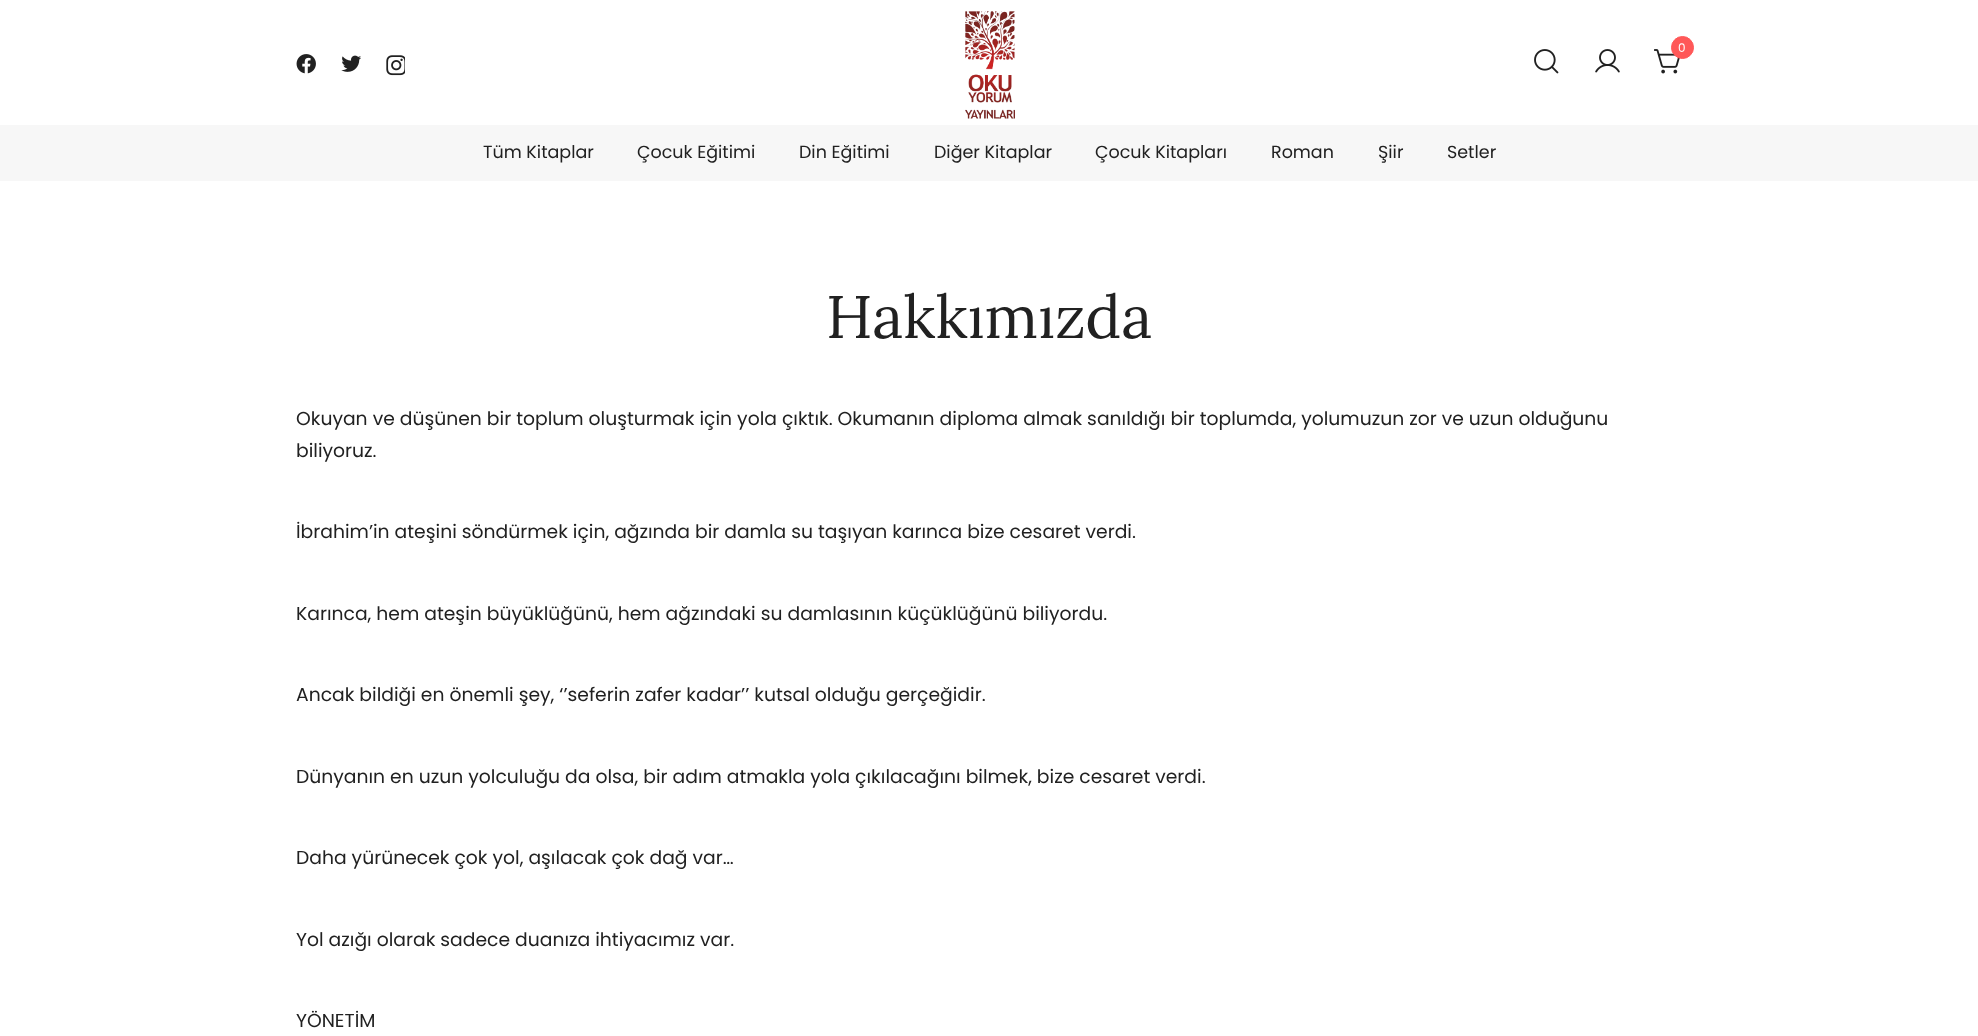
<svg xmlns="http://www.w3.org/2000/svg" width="1978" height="1036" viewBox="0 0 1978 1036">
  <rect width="100%" height="100%" fill="#fff"/>
  <image x="965" y="11" width="50" height="108" href="img/1.png"/>
  <image x="1654" y="49" width="26" height="25" href="img/2.png"/>
  <circle cx="1682.5" cy="47.5" r="11" fill="#ff5858" stroke="#ff5858"/>
  <image x="1595" y="49" width="25" height="24" href="img/3.png"/>
  <image x="1534" y="49" width="25" height="25" href="img/4.png"/>
  <image x="296" y="54" width="20" height="20" href="img/5.png"/>
  <image x="341" y="55" width="20" height="17" href="img/6.png"/>
  <image x="386" y="55" width="19" height="21" href="img/7.png"/>
  <path d="M0 125h1978v56H0z" fill="#f7f7f7"/>
  <text x="1678" y="52" font-family="Poppins" font-size="12" fill="#fff">0</text>
  <g font-family="Poppins" font-size="17.5" fill="#212121">
    <text x="483" y="158">Tüm Kitaplar</text>
    <text x="637" y="158">Çocuk Eğitimi</text>
    <text x="799" y="158">Din Eğitimi</text>
    <text x="934" y="158">Diğer Kitaplar</text>
    <text x="1095" y="158">Çocuk Kitapları</text>
    <text x="1271" y="158">Roman</text>
    <text x="1378" y="158">Şiir</text>
    <text x="1447" y="158">Setler</text>
  </g>
  <text x="826" y="338" font-family="Lora" font-size="60" fill="#212121">Hakkımızda</text>
  <g font-family="Poppins" font-size="18.75" fill="#212121">
    <text x="296" y="425">Okuyan ve düşünen bir toplum oluşturmak için yola çıktık. Okumanın diploma almak sanıldığı bir toplumda, yolumuzun zor ve uzun olduğunu</text>
    <text x="296" y="457">biliyoruz.</text>
    <text x="296" y="538">İbrahim’in ateşini söndürmek için, ağzında bir damla su taşıyan karınca bize cesaret verdi.</text>
    <text x="296" y="620">Karınca, hem ateşin büyüklüğünü, hem ağzındaki su damlasının küçüklüğünü biliyordu.</text>
    <text x="296" y="701">Ancak bildiği en önemli şey, ‘’seferin zafer kadar’’ kutsal olduğu gerçeğidir.</text>
    <text x="296" y="783">Dünyanın en uzun yolculuğu da olsa, bir adım atmakla yola çıkılacağını bilmek, bize cesaret verdi.</text>
    <text x="296" y="864">Daha yürünecek çok yol, aşılacak çok dağ var…</text>
    <text x="296" y="946">Yol azığı olarak sadece duanıza ihtiyacımız var.</text>
    <text x="296" y="1027">YÖNETİM</text>
  </g>
</svg>
